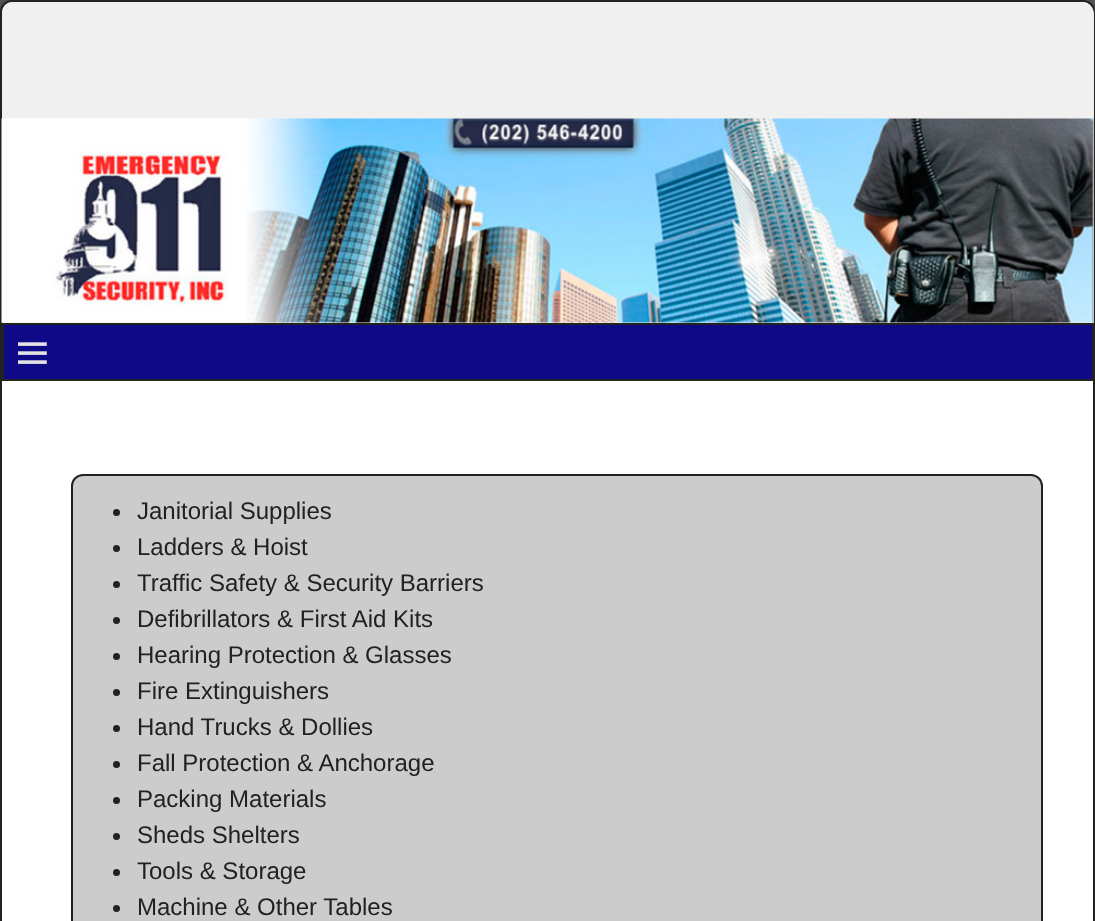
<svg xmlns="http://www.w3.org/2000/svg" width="1095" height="921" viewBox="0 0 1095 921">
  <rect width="100%" height="100%" fill="#c9c9c9"/>
  <image x="0" y="0" width="1095" height="12" href="img/1.png"/>
  <rect x="-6" y="-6" width="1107" height="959" rx="18" fill="#00000040" filter="blur(4.5px)"/>
  <rect x="1" y="1" width="1093" height="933" rx="11" fill="#fff" stroke="#222" stroke-width="2"/>
  <path d="M14 2H1082C1088.5 2 1094 7.5 1094 14V381H2V14C2 7.5 7.5 2 14 2Z" fill="#f0f0f0"/>
  <image x="1" y="118" width="1093" height="205" href="img/2.png"/>
  <path d="M3 324h1090v56H3z" fill="#0e0987" stroke="#222" stroke-width="2"/>
  <image x="18" y="342" width="29" height="22" href="img/3.png"/>
  <rect x="72" y="475" width="970" height="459" rx="11" fill="#ccc" stroke="#222" stroke-width="2"/>
  <circle cx="116.5" cy="512.5" r="3.5" fill="#212121"/>
  <circle cx="116.5" cy="548.5" r="3.5" fill="#212121"/>
  <circle cx="116.5" cy="584.5" r="3.5" fill="#212121"/>
  <circle cx="116.5" cy="620.5" r="3.5" fill="#212121"/>
  <circle cx="116.5" cy="656.5" r="3.5" fill="#212121"/>
  <circle cx="116.5" cy="692.5" r="3.5" fill="#212121"/>
  <circle cx="116.5" cy="728.5" r="3.5" fill="#212121"/>
  <circle cx="116.5" cy="764.5" r="3.5" fill="#212121"/>
  <circle cx="116.5" cy="800.5" r="3.5" fill="#212121"/>
  <circle cx="116.5" cy="836.5" r="3.5" fill="#212121"/>
  <circle cx="116.5" cy="872.5" r="3.5" fill="#212121"/>
  <circle cx="116.5" cy="908.5" r="3.5" fill="#212121"/>
  <g font-family="Liberation Sans" font-size="24" fill="#212121">
    <text x="137" y="519">Janitorial Supplies</text>
    <text x="137" y="555">Ladders &amp; Hoist</text>
    <text x="137" y="591">Traffic Safety &amp; Security Barriers</text>
    <text x="137" y="627">Defibrillators &amp; First Aid Kits</text>
    <text x="137" y="663">Hearing Protection &amp; Glasses</text>
    <text x="137" y="699">Fire Extinguishers</text>
    <text x="137" y="735">Hand Trucks &amp; Dollies</text>
    <text x="137" y="771">Fall Protection &amp; Anchorage</text>
    <text x="137" y="807">Packing Materials</text>
    <text x="137" y="843">Sheds Shelters</text>
    <text x="137" y="879">Tools &amp; Storage</text>
    <text x="137" y="915">Machine &amp; Other Tables</text>
  </g>
</svg>
